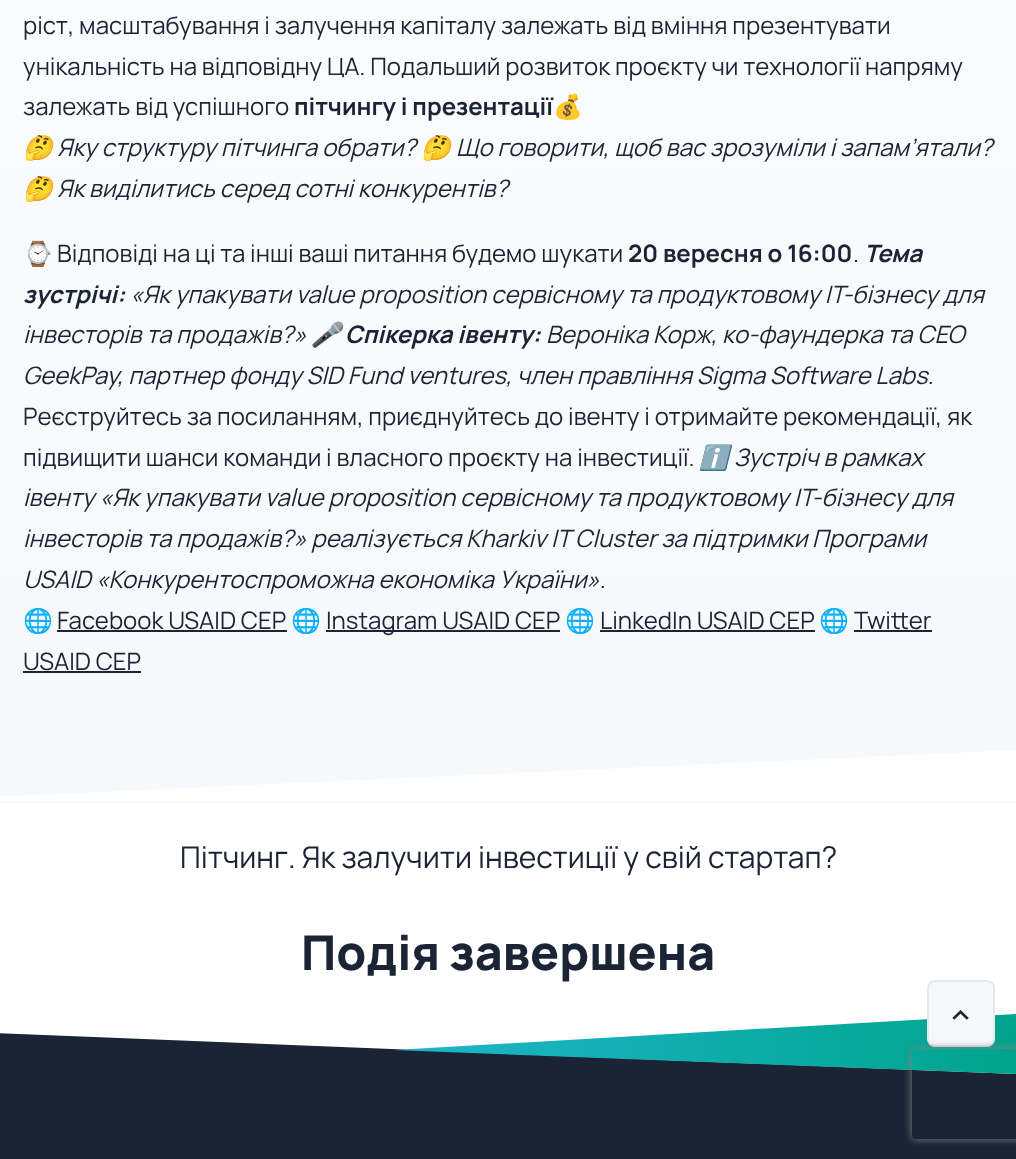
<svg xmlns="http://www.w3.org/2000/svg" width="1016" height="1159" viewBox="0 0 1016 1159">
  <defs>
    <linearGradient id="g1" gradientUnits="userSpaceOnUse" x1="508" y1="-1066" x2="509" y2="803"><stop offset="0" stop-color="#fff"/><stop offset="1" stop-color="#f6f8fb"/></linearGradient>
    <linearGradient id="g2" gradientUnits="userSpaceOnUse" x1="267" y1="1044" x2="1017" y2="1044"><stop offset="0" stop-color="#25b9d7"/><stop offset="1" stop-color="#00a48c"/></linearGradient>
    <clipPath id="clip1"><path d="M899 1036H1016V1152H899ZM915 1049H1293C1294.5 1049 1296 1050.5 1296 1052V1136C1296 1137.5 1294.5 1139 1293 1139H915C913.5 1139 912 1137.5 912 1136V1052C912 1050.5 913.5 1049 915 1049Z" clip-rule="evenodd"/></clipPath>
  </defs>
  <rect width="100%" height="100%" fill="#fff"/>
  <path d="M0 0h1016v803H0z" fill="url(#g1)"/>
  <path d="M57 630h230v2H57z" fill="#1b2434"/>
  <path d="M326 630h234v2H326z" fill="#1b2434"/>
  <path d="M600 630h215v2H600z" fill="#1b2434"/>
  <path d="M854 630h78v2H854z" fill="#1b2434"/>
  <path d="M23 671h118v2H23z" fill="#1b2434"/>
  <path d="M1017 802H-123L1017 750Z" fill="#fff"/>
  <path d="M0 1033h1016v126H0z" fill="#1b2434"/>
  <path d="M-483 1014H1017V1074Z" fill="#fff"/>
  <path d="M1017 1014L394 1050L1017 1074Z" fill="url(#g2)"/>
  <rect x="928" y="981" width="66" height="65" rx="7" fill="#f6f8fb" stroke="#e7e8e9" stroke-width="2"/>
  <image x="952" y="1010" width="17" height="10" href="img/1.png"/>
  <g clip-path="url(#clip1)">
    <rect x="912" y="1049" width="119" height="90" rx="3" fill="#808080" filter="blur(4px)"/>
  </g>
  <g font-family="Manrope" font-size="24" fill="#1b2434">
    <text x="23" y="34">ріст, масштабування і залучення капіталу залежать від вміння презентувати</text>
    <text x="23" y="75">унікальність на відповідну ЦА. Подальший розвиток проєкту чи технології напряму</text>
    <text x="23" y="115">залежать від успішного</text>
  </g>
  <text x="294" y="115" font-family="Manrope" font-size="24" font-weight="bold" fill="#1b2434">пітчингу і презентації</text>
  <text x="553" y="115" font-family="Noto Color Emoji" font-size="24" fill="#1b2434">💰</text>
  <text x="23" y="156" font-family="Noto Color Emoji" font-size="24" font-style="italic" fill="#1b2434">🤔</text>
  <text x="57" y="156" font-family="Manrope" font-size="24" font-style="italic" fill="#1b2434">Яку структуру пітчинга обрати?</text>
  <text x="421" y="156" font-family="Noto Color Emoji" font-size="24" font-style="italic" fill="#1b2434">🤔</text>
  <text x="456" y="156" font-family="Manrope" font-size="24" font-style="italic" fill="#1b2434">Що говорити, щоб вас зрозуміли і запам’ятали?</text>
  <text x="23" y="197" font-family="Noto Color Emoji" font-size="24" font-style="italic" fill="#1b2434">🤔</text>
  <text x="57" y="197" font-family="Manrope" font-size="24" font-style="italic" fill="#1b2434">Як виділитись серед сотні конкурентів?</text>
  <text x="23" y="262" font-family="Noto Color Emoji" font-size="24" fill="#1b2434">⌚️</text>
  <text x="57" y="262" font-family="Manrope" font-size="24" fill="#1b2434">Відповіді на ці та інші ваші питання будемо шукати</text>
  <text x="628" y="262" font-family="Manrope" font-size="24" font-weight="bold" fill="#1b2434">20 вересня о 16:00</text>
  <text x="853" y="262" font-family="Manrope" font-size="24" fill="#1b2434">.</text>
  <g font-family="Manrope" font-size="24" font-weight="bold" font-style="italic" fill="#1b2434">
    <text x="864" y="262">Тема</text>
    <text x="23" y="303">зустрічі:</text>
  </g>
  <g font-family="Manrope" font-size="24" font-style="italic" fill="#1b2434">
    <text x="130" y="303">«Як упакувати value proposition сервісному та продуктовому IT-бізнесу для</text>
    <text x="23" y="343">інвесторів та продажів?»</text>
  </g>
  <text x="311" y="343" font-family="Noto Color Emoji" font-size="24" font-weight="bold" font-style="italic" fill="#1b2434">🎤</text>
  <text x="345" y="343" font-family="Manrope" font-size="24" font-weight="bold" font-style="italic" fill="#1b2434">Спікерка івенту:</text>
  <g font-family="Manrope" font-size="24" font-style="italic" fill="#1b2434">
    <text x="546" y="343">Вероніка Корж, ко-фаундерка та CEO</text>
    <text x="23" y="384">GeekPay, партнер фонду SID Fund ventures, член правління Sigma Software Labs.</text>
  </g>
  <g font-family="Manrope" font-size="24" fill="#1b2434">
    <text x="23" y="425">Реєструйтесь за посиланням, приєднуйтесь до івенту і отримайте рекомендації, як</text>
    <text x="23" y="466">підвищити шанси команди і власного проєкту на інвестиції.</text>
  </g>
  <text x="699" y="466" font-family="Noto Color Emoji" font-size="24" font-style="italic" fill="#1b2434">ℹ️</text>
  <g font-family="Manrope" font-size="24" font-style="italic" fill="#1b2434">
    <text x="734" y="466">Зустріч в рамках</text>
    <text x="23" y="506">івенту «Як упакувати value proposition сервісному та продуктовому IT-бізнесу для</text>
    <text x="23" y="547">інвесторів та продажів?» реалізується Kharkiv IT Cluster за підтримки Програми</text>
    <text x="23" y="588">USAID «Конкурентоспроможна економіка України».</text>
  </g>
  <text x="23" y="629" font-family="Noto Color Emoji" font-size="24" fill="#1b2434">🌐</text>
  <text x="57" y="629" font-family="Manrope" font-size="24" fill="#1b2434">Facebook USAID CEP</text>
  <text x="291" y="629" font-family="Noto Color Emoji" font-size="24" fill="#1b2434">🌐</text>
  <text x="326" y="629" font-family="Manrope" font-size="24" fill="#1b2434">Instagram USAID CEP</text>
  <text x="565" y="629" font-family="Noto Color Emoji" font-size="24" fill="#1b2434">🌐</text>
  <text x="600" y="629" font-family="Manrope" font-size="24" fill="#1b2434">LinkedIn USAID CEP</text>
  <text x="819" y="629" font-family="Noto Color Emoji" font-size="24" fill="#1b2434">🌐</text>
  <g font-family="Manrope" font-size="24" fill="#1b2434">
    <text x="854" y="629">Twitter</text>
    <text x="23" y="670">USAID CEP</text>
  </g>
  <text x="180" y="868" font-family="Manrope" font-size="30" fill="#1b2434">Пітчинг. Як залучити інвестиції у свій стартап?</text>
  <text x="301" y="970" font-family="Manrope" font-size="48" font-weight="800" fill="#1b2434">Подія завершена</text>
</svg>
